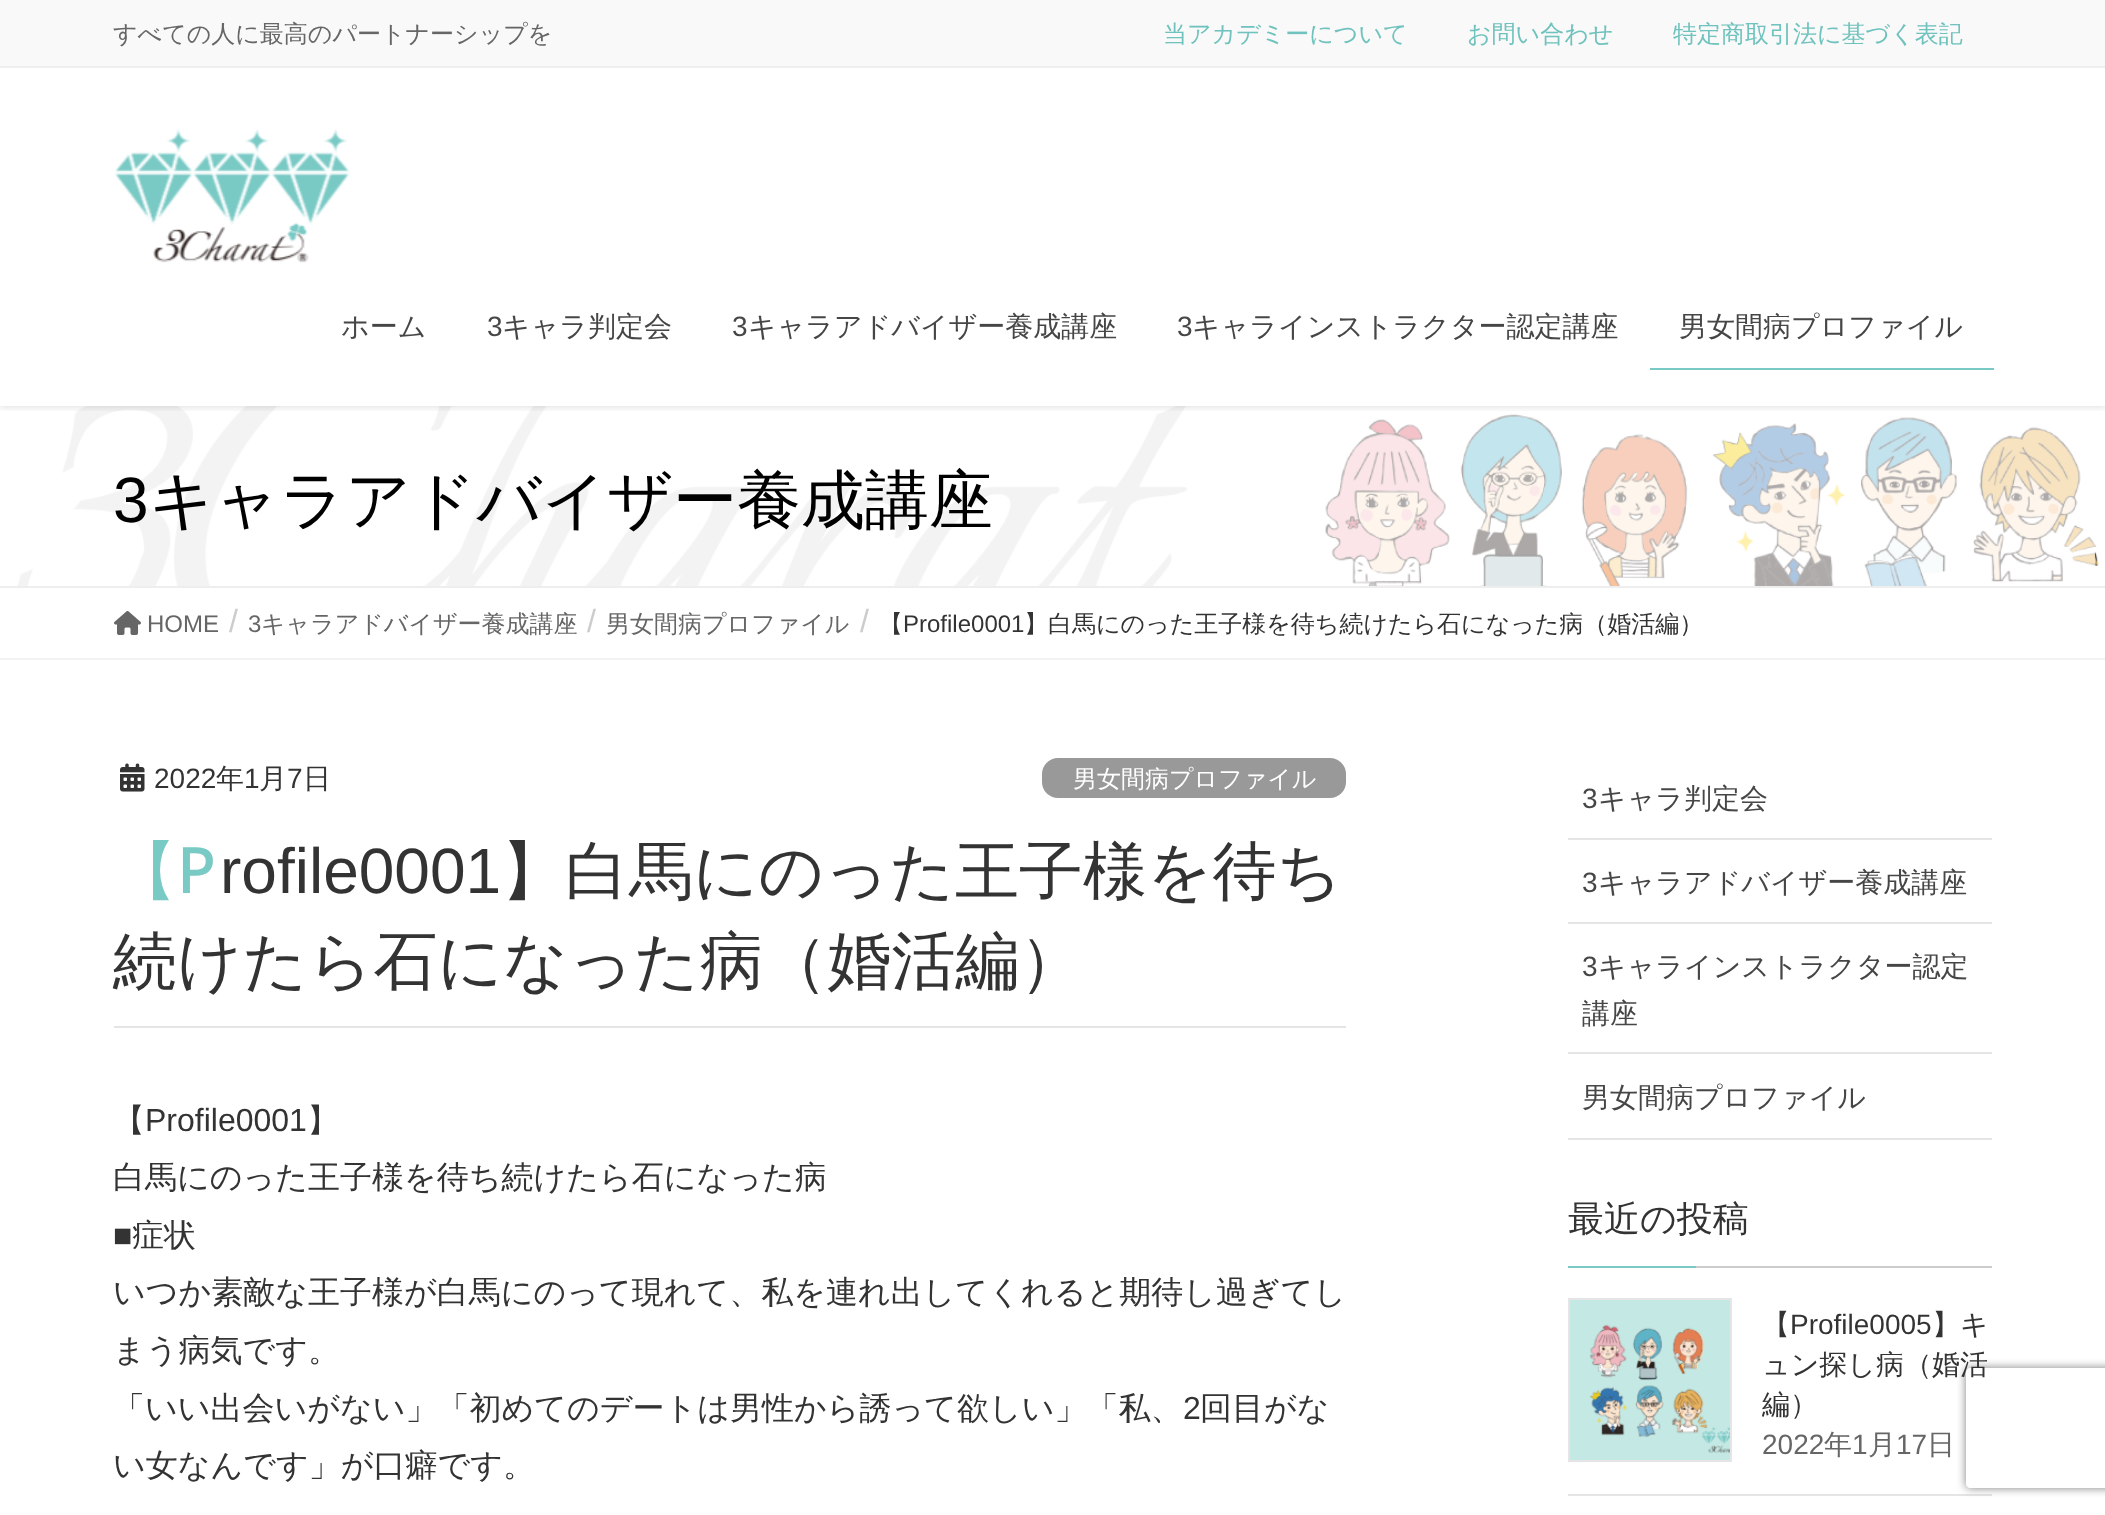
<svg xmlns="http://www.w3.org/2000/svg" width="2105" height="1515" viewBox="0 0 2105 1515">
  <defs>
    <clipPath id="clip1"><path d="M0 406h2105v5H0z"/></clipPath>
    <clipPath id="clip2"><path d="M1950 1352H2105V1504H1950ZM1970 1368H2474C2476 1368 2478 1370 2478 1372V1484C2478 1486 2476 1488 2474 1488H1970C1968 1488 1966 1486 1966 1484V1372C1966 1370 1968 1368 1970 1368Z" clip-rule="evenodd"/></clipPath>
  </defs>
  <rect width="100%" height="100%" fill="#fff"/>
  <image x="17" y="406" width="2082" height="180" href="img/2.png"/>
  <g clip-path="url(#clip1)">
    <path d="M0 2h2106v406H0z" fill="#0000001a" filter="blur(3px)"/>
  </g>
  <path d="M0 0h2105v66H0z" fill="#f9f9f9"/>
  <path d="M0 66h2105v2H0z" fill="#efefef"/>
  <image x="114" y="129" width="236" height="134" href="img/1.png"/>
  <path d="M1650 368h344v2H1650z" fill="#79c9c5"/>
  <path d="M0 586h2105v2H0z" fill="#eee"/>
  <path d="M0 658h2105v2H0z" fill="#f3f3f3"/>
  <image x="114" y="611" width="27" height="24" href="img/3.png"/>
  <path d="M114 1026h1232v2H114z" fill="#e5e5e5"/>
  <image x="120" y="763" width="25" height="29" href="img/4.png"/>
  <rect x="1042" y="758" width="304" height="40" rx="16" fill="#999"/>
  <path d="M1568 838h424v2H1568z" fill="#e5e5e5"/>
  <path d="M1568 922h424v2H1568z" fill="#e5e5e5"/>
  <path d="M1568 1052h424v2H1568z" fill="#e5e5e5"/>
  <path d="M1568 1138h424v2H1568z" fill="#e5e5e5"/>
  <path d="M1696 1266h296v2H1696z" fill="#ccc"/>
  <path d="M1568 1266h128v2H1568z" fill="#79c9c5"/>
  <path d="M1568 1494h424v2H1568z" fill="#e5e5e5"/>
  <path d="M1569 1299h162v162H1569z" fill="none" stroke="#e5e5e5" stroke-width="2"/>
  <image x="1570" y="1300" width="160" height="160" href="img/5.png"/>
  <g clip-path="url(#clip2)">
    <rect x="1966" y="1368" width="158" height="120" rx="4" fill="#808080" filter="blur(5px)"/>
  </g>
  <text x="113" y="42" font-family="WenQuanYi Zen Hei" font-size="24" font-weight="500" fill="#666">すべての人に最高のパートナーシップを</text>
  <g font-family="WenQuanYi Zen Hei" font-size="24" font-weight="500" fill="#6fc2bd">
    <text x="1163" y="42">当アカデミーについて</text>
    <text x="1467" y="42">お問い合わせ</text>
    <text x="1673" y="42">特定商取引法に基づく表記</text>
  </g>
  <text x="341" y="336" font-family="WenQuanYi Zen Hei" font-size="28" font-weight="500" fill="#464646">ホーム</text>
  <text x="487" y="336" font-family="Liberation Sans" font-size="28" fill="#464646">3</text>
  <text x="502" y="336" font-family="WenQuanYi Zen Hei" font-size="28" font-weight="500" fill="#464646">キャラ判定会</text>
  <text x="732" y="336" font-family="Liberation Sans" font-size="28" fill="#464646">3</text>
  <text x="748" y="336" font-family="WenQuanYi Zen Hei" font-size="28" font-weight="500" fill="#464646">キャラアドバイザー養成講座</text>
  <text x="1177" y="336" font-family="Liberation Sans" font-size="28" fill="#464646">3</text>
  <g font-family="WenQuanYi Zen Hei" font-size="28" font-weight="500" fill="#464646">
    <text x="1192" y="336">キャラインストラクター認定講座</text>
    <text x="1679" y="336">男女間病プロファイル</text>
  </g>
  <text x="113" y="522" font-family="Liberation Sans" font-size="64" fill="#000">3</text>
  <text x="149" y="522" font-family="WenQuanYi Zen Hei" font-size="64" font-weight="500" fill="#000">キャラアドバイザー養成講座</text>
  <text x="147" y="632" font-family="Liberation Sans" font-size="24" fill="#666">HOME</text>
  <text x="229" y="632" font-family="Liberation Sans" font-size="32" fill="#ccc">/</text>
  <text x="248" y="632" font-family="Liberation Sans" font-size="24" fill="#666">3</text>
  <text x="261" y="632" font-family="WenQuanYi Zen Hei" font-size="24" font-weight="500" fill="#666">キャラアドバイザー養成講座</text>
  <text x="587" y="632" font-family="Liberation Sans" font-size="32" fill="#ccc">/</text>
  <text x="606" y="632" font-family="WenQuanYi Zen Hei" font-size="24" font-weight="500" fill="#666">男女間病プロファイル</text>
  <text x="860" y="632" font-family="Liberation Sans" font-size="32" fill="#ccc">/</text>
  <text x="879" y="632" font-family="WenQuanYi Zen Hei" font-size="24" font-weight="500" fill="#333">【</text>
  <text x="903" y="632" font-family="Liberation Sans" font-size="24" fill="#333">Profile0001</text>
  <text x="1024" y="632" font-family="WenQuanYi Zen Hei" font-size="24" font-weight="500" fill="#333">】白馬にのった王子様を待ち続けたら石になった病（婚活編）</text>
  <text x="154" y="788" font-family="Liberation Sans" font-size="28" fill="#333">2022</text>
  <text x="216" y="788" font-family="WenQuanYi Zen Hei" font-size="28" font-weight="500" fill="#333">年</text>
  <text x="244" y="788" font-family="Liberation Sans" font-size="28" fill="#333">1</text>
  <text x="259" y="788" font-family="WenQuanYi Zen Hei" font-size="28" font-weight="500" fill="#333">月</text>
  <text x="287" y="788" font-family="Liberation Sans" font-size="28" fill="#333">7</text>
  <text x="303" y="788" font-family="WenQuanYi Zen Hei" font-size="28" font-weight="500" fill="#333">日</text>
  <text x="1073" y="787" font-family="WenQuanYi Zen Hei" font-size="24" font-weight="500" fill="#fff">男女間病プロファイル</text>
  <text x="113" y="893" font-family="Noto Sans" font-size="64" font-weight="500" fill="#79c9c5">【P</text>
  <text x="220" y="893" font-family="Liberation Sans" font-size="64" fill="#333">rofile0001</text>
  <g font-family="WenQuanYi Zen Hei" font-size="64" font-weight="500" fill="#333">
    <text x="501" y="893">】白馬にのった王子様を待ち</text>
    <text x="113" y="983">続けたら石になった病（婚活編）</text>
  </g>
  <text x="113" y="1131" font-family="WenQuanYi Zen Hei" font-size="32" font-weight="500" fill="#333">【</text>
  <text x="145" y="1131" font-family="Liberation Sans" font-size="32" fill="#333">Profile0001</text>
  <g font-family="WenQuanYi Zen Hei" font-size="32" font-weight="500" fill="#333">
    <text x="307" y="1131">】</text>
    <text x="113" y="1188">白馬にのった王子様を待ち続けたら石になった病</text>
  </g>
  <text x="113" y="1246" font-family="Liberation Sans" font-size="32" fill="#333">■</text>
  <g font-family="WenQuanYi Zen Hei" font-size="32" font-weight="500" fill="#333">
    <text x="132" y="1246">症状</text>
    <text x="113" y="1303">いつか素敵な王子様が白馬にのって現れて、私を連れ出してくれると期待し過ぎてし</text>
    <text x="113" y="1361">まう病気です。</text>
    <text x="113" y="1419">「いい出会いがない」「初めてのデートは男性から誘って欲しい」「私、</text>
  </g>
  <text x="1183" y="1419" font-family="Liberation Sans" font-size="32" fill="#333">2</text>
  <g font-family="WenQuanYi Zen Hei" font-size="32" font-weight="500" fill="#333">
    <text x="1200" y="1419">回目がな</text>
    <text x="113" y="1476">い女なんです」が口癖です。</text>
  </g>
  <text x="1582" y="808" font-family="Liberation Sans" font-size="28" fill="#464646">3</text>
  <text x="1598" y="808" font-family="WenQuanYi Zen Hei" font-size="28" font-weight="500" fill="#464646">キャラ判定会</text>
  <text x="1582" y="892" font-family="Liberation Sans" font-size="28" fill="#464646">3</text>
  <text x="1598" y="892" font-family="WenQuanYi Zen Hei" font-size="28" font-weight="500" fill="#464646">キャラアドバイザー養成講座</text>
  <text x="1582" y="976" font-family="Liberation Sans" font-size="28" fill="#464646">3</text>
  <g font-family="WenQuanYi Zen Hei" font-size="28" font-weight="500" fill="#464646">
    <text x="1598" y="976">キャラインストラクター認定</text>
    <text x="1582" y="1023">講座</text>
    <text x="1582" y="1107">男女間病プロファイル</text>
  </g>
  <text x="1568" y="1231" font-family="WenQuanYi Zen Hei" font-size="36" font-weight="500" fill="#333">最近の投稿</text>
  <text x="1762" y="1334" font-family="WenQuanYi Zen Hei" font-size="28" font-weight="500" fill="#333">【</text>
  <text x="1790" y="1334" font-family="Liberation Sans" font-size="28" fill="#333">Profile0005</text>
  <g font-family="WenQuanYi Zen Hei" font-size="28" font-weight="500" fill="#333">
    <text x="1932" y="1334">】キ</text>
    <text x="1762" y="1374">ュン探し病（婚活</text>
    <text x="1762" y="1414">編）</text>
  </g>
  <text x="1762" y="1454" font-family="Liberation Sans" font-size="28" fill="#666">2022</text>
  <text x="1824" y="1454" font-family="WenQuanYi Zen Hei" font-size="28" font-weight="500" fill="#666">年</text>
  <text x="1852" y="1454" font-family="Liberation Sans" font-size="28" fill="#666">1</text>
  <text x="1868" y="1454" font-family="WenQuanYi Zen Hei" font-size="28" font-weight="500" fill="#666">月</text>
  <text x="1896" y="1454" font-family="Liberation Sans" font-size="28" fill="#666">17</text>
  <text x="1927" y="1454" font-family="WenQuanYi Zen Hei" font-size="28" font-weight="500" fill="#666">日</text>
</svg>
